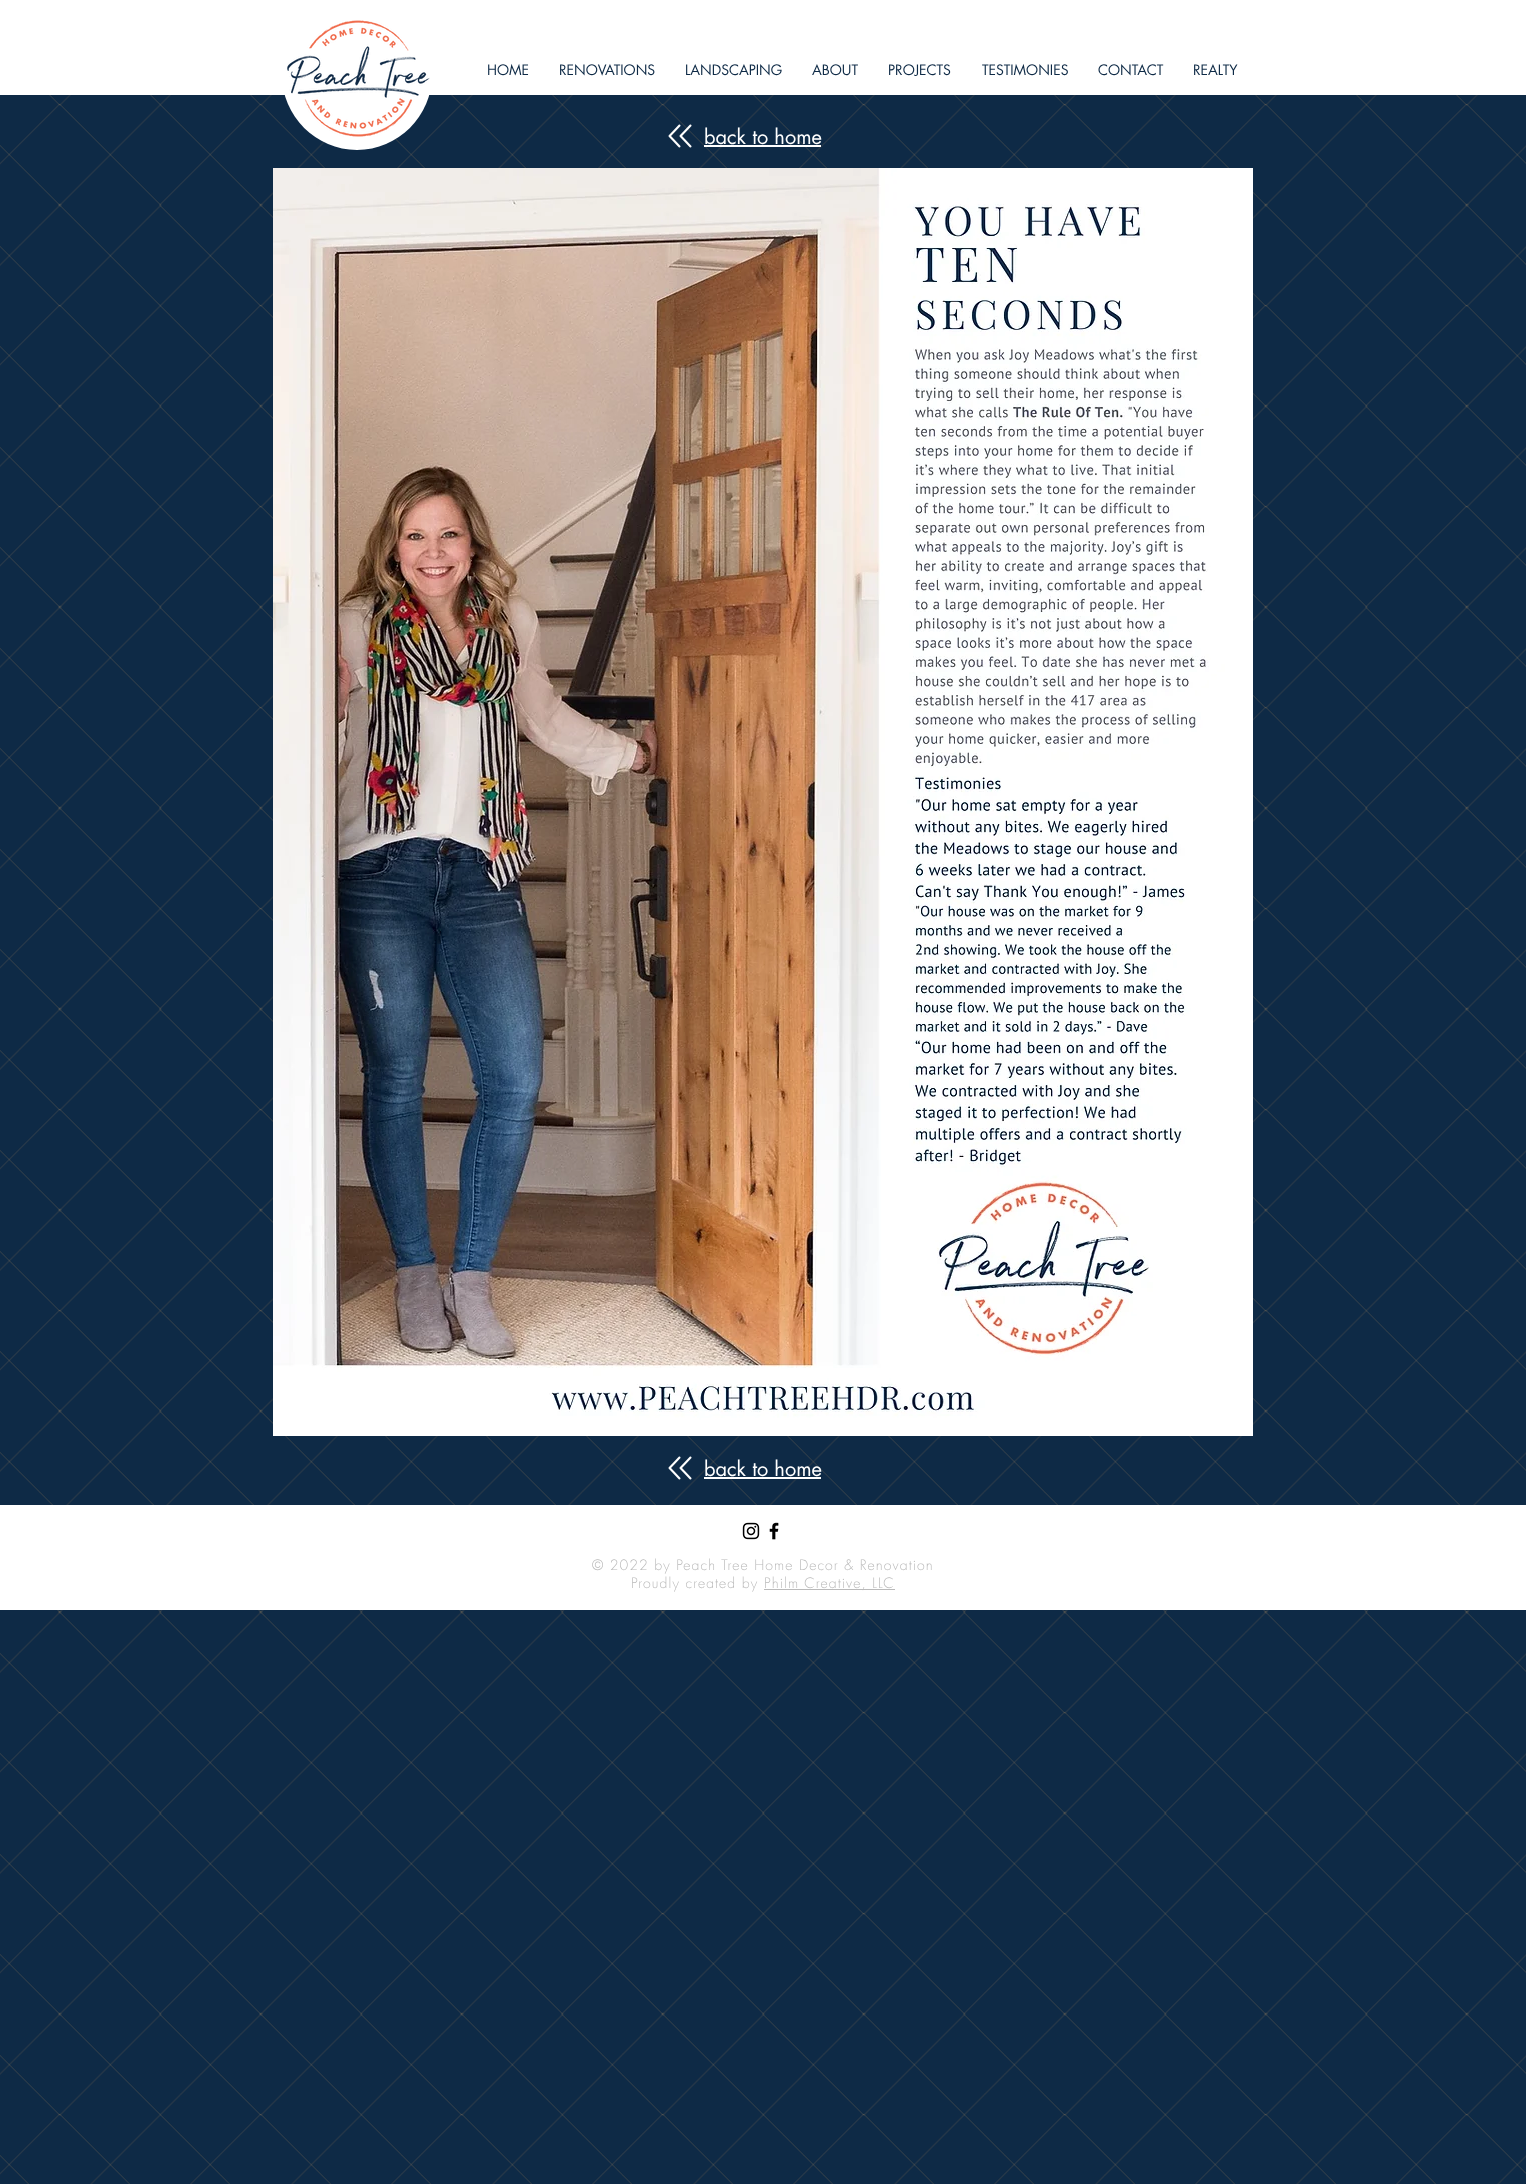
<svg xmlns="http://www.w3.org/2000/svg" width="1526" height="2184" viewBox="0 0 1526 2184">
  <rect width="100%" height="100%" fill="#0e2a46"/>
  <path d="M0 0h1526v95H0z" fill="#fff"/>
  <image x="0" y="95" width="1526" height="2089" href="img/8.png"/>
  <path d="M432 75C432 116 398 150 357 150C316 150 282 116 282 75C282 34 316 0 357 0C398 0 432 34 432 75Z" fill="#fff"/>
  <image x="287" y="20" width="143" height="117" href="img/1.png"/>
  <image x="668" y="124" width="13" height="24" href="img/2.png"/>
  <image x="679" y="124" width="13" height="24" href="img/3.png"/>
  <path d="M704 145h117v2H704z" fill="#fff"/>
  <image x="273" y="168" width="980" height="1268" href="img/4.png"/>
  <image x="668" y="1456" width="13" height="24" href="img/2.png"/>
  <image x="679" y="1456" width="13" height="24" href="img/5.png"/>
  <path d="M704 1477h117v2H704z" fill="#fff"/>
  <path d="M0 1505h1526v105H0z" fill="#fff"/>
  <image x="742" y="1522" width="18" height="18" href="img/6.png"/>
  <image x="769" y="1522" width="10" height="18" href="img/7.png"/>
  <path d="M764 1589h131v1H764z" fill="#bababa"/>
  <g font-family="futura" font-size="14" fill="#0e2a46">
    <text x="487" y="75">HOME</text>
    <text x="559" y="75">RENOVATIONS</text>
    <text x="685" y="75">LANDSCAPING</text>
    <text x="812" y="75">ABOUT</text>
    <text x="888" y="75">PROJECTS</text>
    <text x="982" y="75">TESTIMONIES</text>
    <text x="1098" y="75">CONTACT</text>
    <text x="1193" y="75">REALTY</text>
  </g>
  <g font-family="futura" font-size="20" fill="#fff">
    <text x="704" y="144">back to home</text>
    <text x="704" y="1476">back to home</text>
  </g>
  <g font-family="futura" font-size="14" font-weight="300" letter-spacing="1.1" fill="#bababa">
    <text x="592" y="1570">© 2022 by Peach Tree Home Decor &amp; Renovation</text>
    <text x="631" y="1588">Proudly created by</text>
    <text x="764" y="1588">Philm Creative, LLC</text>
  </g>
</svg>
